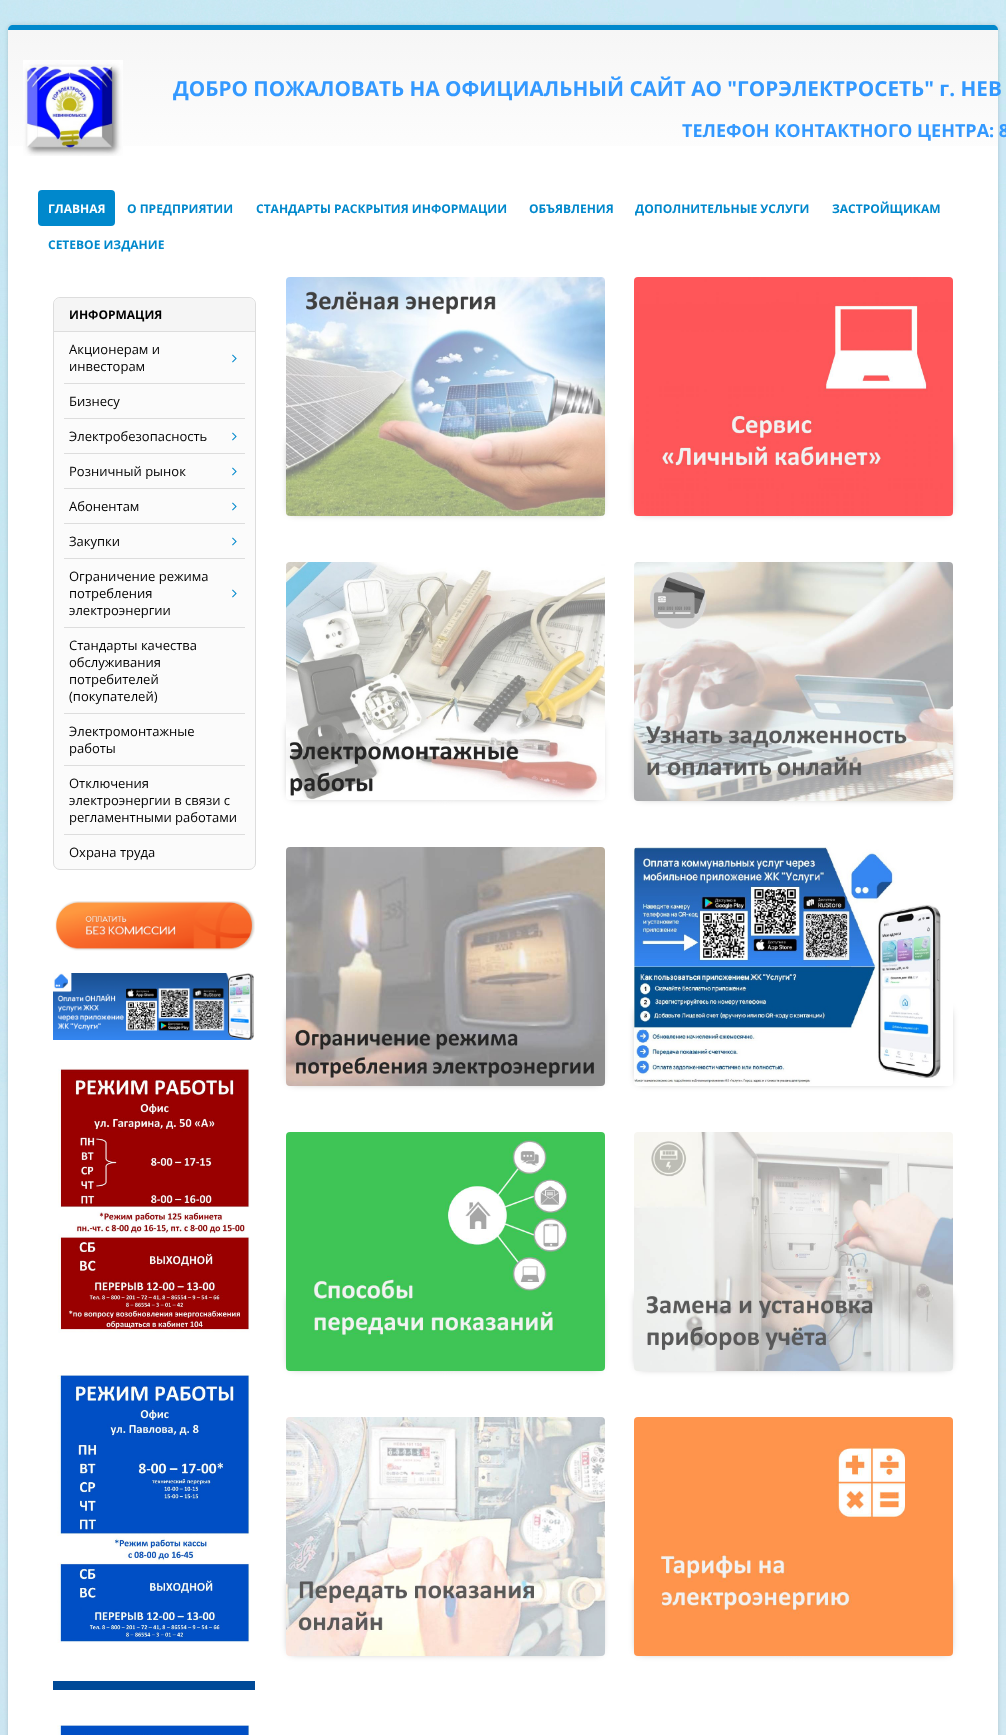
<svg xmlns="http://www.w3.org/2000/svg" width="1006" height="1735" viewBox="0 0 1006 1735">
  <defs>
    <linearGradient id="g1" gradientUnits="userSpaceOnUse" x1="503" y1="30" x2="503" y2="190"><stop offset="0" stop-color="#f6f6f6"/><stop offset="1" stop-color="#fff"/></linearGradient>
  </defs>
  <rect width="100%" height="100%" fill="#fff"/>
  <image x="0" y="0" width="1006" height="1735" href="img/1.png"/>
  <rect x="8" y="25" width="990" height="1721" rx="5" fill="#00000026" filter="blur(2px)"/>
  <rect x="8" y="25" width="990" height="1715" rx="5" fill="#fff"/>
  <path d="M13 25C10 25 8 27 8 30H998C998 27 996 25 993 25Z" fill="#08c"/>
  <path d="M8 30h990v116H8z" fill="url(#g1)"/>
  <image x="23" y="60" width="100" height="96" href="img/2.png"/>
  <rect x="38" y="190" width="77" height="36" rx="4" fill="#08c"/>
  <rect x="53.5" y="297.5" width="202" height="572" rx="6.5" fill="#fbfbfb" stroke="#ddd"/>
  <path d="M61 298H248C252 298 255 301 255 305V332H54V305C54 301 57 298 61 298Z" fill="#f5f5f5"/>
  <path d="M54 331h201v1H54z" fill="#ddd"/>
  <image x="232" y="354" width="5" height="9" href="img/3.png"/>
  <path d="M64 383h181v1H64z" fill="#ddd"/>
  <path d="M64 418h181v1H64z" fill="#ddd"/>
  <image x="232" y="432" width="5" height="9" href="img/3.png"/>
  <path d="M64 453h181v1H64z" fill="#ddd"/>
  <image x="232" y="467" width="5" height="9" href="img/3.png"/>
  <path d="M64 488h181v1H64z" fill="#ddd"/>
  <image x="232" y="502" width="5" height="9" href="img/3.png"/>
  <path d="M64 523h181v1H64z" fill="#ddd"/>
  <image x="232" y="537" width="5" height="9" href="img/3.png"/>
  <path d="M64 558h181v1H64z" fill="#ddd"/>
  <image x="232" y="589" width="5" height="9" href="img/3.png"/>
  <path d="M64 627h181v1H64z" fill="#ddd"/>
  <path d="M64 713h181v1H64z" fill="#ddd"/>
  <path d="M64 765h181v1H64z" fill="#ddd"/>
  <path d="M64 834h181v1H64z" fill="#ddd"/>
  <image x="55" y="901" width="200" height="50" href="img/4.png"/>
  <image x="53" y="973" width="201" height="67" href="img/5.png"/>
  <image x="58" y="1068" width="192" height="265" href="img/6.png"/>
  <image x="57" y="1375" width="193" height="268" href="img/7.png"/>
  <path d="M53 1681h202v9H53z" fill="#004a98"/>
  <image x="57" y="1725" width="193" height="10" href="img/8.png"/>
  <path d="M291 440h154v71H291z" fill="#00000099" filter="blur(5px)"/>
  <path d="M445 440h154v71H445z" fill="#00000099" filter="blur(5px)"/>
  <image x="286" y="277" width="319" height="239" href="img/9.png"/>
  <path d="M639 440h155v71H639z" fill="#00000099" filter="blur(5px)"/>
  <path d="M794 440h154v71H794z" fill="#00000099" filter="blur(5px)"/>
  <image x="634" y="277" width="319" height="239" href="img/10.png"/>
  <path d="M291 725h154v70H291z" fill="#00000099" filter="blur(5px)"/>
  <path d="M445 725h154v70H445z" fill="#00000099" filter="blur(5px)"/>
  <image x="286" y="562" width="319" height="238" href="img/11.png"/>
  <path d="M639 725h155v71H639z" fill="#00000099" filter="blur(5px)"/>
  <path d="M794 725h154v71H794z" fill="#00000099" filter="blur(5px)"/>
  <image x="634" y="562" width="319" height="239" href="img/12.png"/>
  <path d="M291 1011h154v70H291z" fill="#00000099" filter="blur(5px)"/>
  <path d="M445 1011h154v70H445z" fill="#00000099" filter="blur(5px)"/>
  <image x="286" y="847" width="319" height="239" href="img/13.png"/>
  <path d="M639 1011h155v70H639z" fill="#00000099" filter="blur(5px)"/>
  <path d="M794 1011h154v70H794z" fill="#00000099" filter="blur(5px)"/>
  <image x="634" y="847" width="319" height="239" href="img/14.png"/>
  <path d="M291 1296h154v70H291z" fill="#00000099" filter="blur(5px)"/>
  <path d="M445 1296h154v70H445z" fill="#00000099" filter="blur(5px)"/>
  <image x="286" y="1132" width="319" height="239" href="img/15.png"/>
  <path d="M639 1296h155v70H639z" fill="#00000099" filter="blur(5px)"/>
  <path d="M794 1296h154v70H794z" fill="#00000099" filter="blur(5px)"/>
  <image x="634" y="1132" width="319" height="239" href="img/16.png"/>
  <path d="M291 1581h154v70H291z" fill="#00000099" filter="blur(5px)"/>
  <path d="M445 1581h154v70H445z" fill="#00000099" filter="blur(5px)"/>
  <image x="286" y="1417" width="319" height="239" href="img/17.png"/>
  <path d="M639 1581h155v70H639z" fill="#00000099" filter="blur(5px)"/>
  <path d="M794 1581h154v70H794z" fill="#00000099" filter="blur(5px)"/>
  <image x="634" y="1417" width="319" height="239" href="img/18.png"/>
  <text x="173" y="96" font-family="Open Sans" font-size="20.7" font-weight="bold" fill="#39f">ДОБРО ПОЖАЛОВАТЬ НА ОФИЦИАЛЬНЫЙ САЙТ АО "ГОРЭЛЕКТРОСЕТЬ" г. НЕВ</text>
  <text x="682" y="137" font-family="Open Sans" font-size="18" font-weight="bold" fill="#39f">ТЕЛЕФОН КОНТАКТНОГО ЦЕНТРА: 8</text>
  <text x="48" y="213" font-family="Open Sans" font-size="12" font-weight="bold" fill="#fff">ГЛАВНАЯ</text>
  <g font-family="Open Sans" font-size="12" font-weight="bold" fill="#08c">
    <text x="127" y="213">О ПРЕДПРИЯТИИ</text>
    <text x="256" y="213">СТАНДАРТЫ РАСКРЫТИЯ ИНФОРМАЦИИ</text>
    <text x="529" y="213">ОБЪЯВЛЕНИЯ</text>
    <text x="635" y="213">ДОПОЛНИТЕЛЬНЫЕ УСЛУГИ</text>
    <text x="832" y="213">ЗАСТРОЙЩИКАМ</text>
    <text x="48" y="249">СЕТЕВОЕ ИЗДАНИЕ</text>
  </g>
  <text x="69" y="319" font-family="Open Sans" font-size="12" font-weight="bold" fill="#000">ИНФОРМАЦИЯ</text>
  <g font-family="Open Sans" font-size="13" fill="#000">
    <text x="69" y="354">Акционерам и</text>
    <text x="69" y="371">инвесторам</text>
    <text x="69" y="406">Бизнесу</text>
    <text x="69" y="441">Электробезопасность</text>
    <text x="69" y="476">Розничный рынок</text>
    <text x="69" y="511">Абонентам</text>
    <text x="69" y="546">Закупки</text>
    <text x="69" y="581">Ограничение режима</text>
    <text x="69" y="598">потребления</text>
    <text x="69" y="615">электроэнергии</text>
    <text x="69" y="650">Стандарты качества</text>
    <text x="69" y="667">обслуживания</text>
    <text x="69" y="684">потребителей</text>
    <text x="69" y="701">(покупателей)</text>
    <text x="69" y="736">Электромонтажные</text>
    <text x="69" y="753">работы</text>
    <text x="69" y="788">Отключения</text>
    <text x="69" y="805">электроэнергии в связи с</text>
    <text x="69" y="822">регламентными работами</text>
    <text x="69" y="857">Охрана труда</text>
  </g>
</svg>
